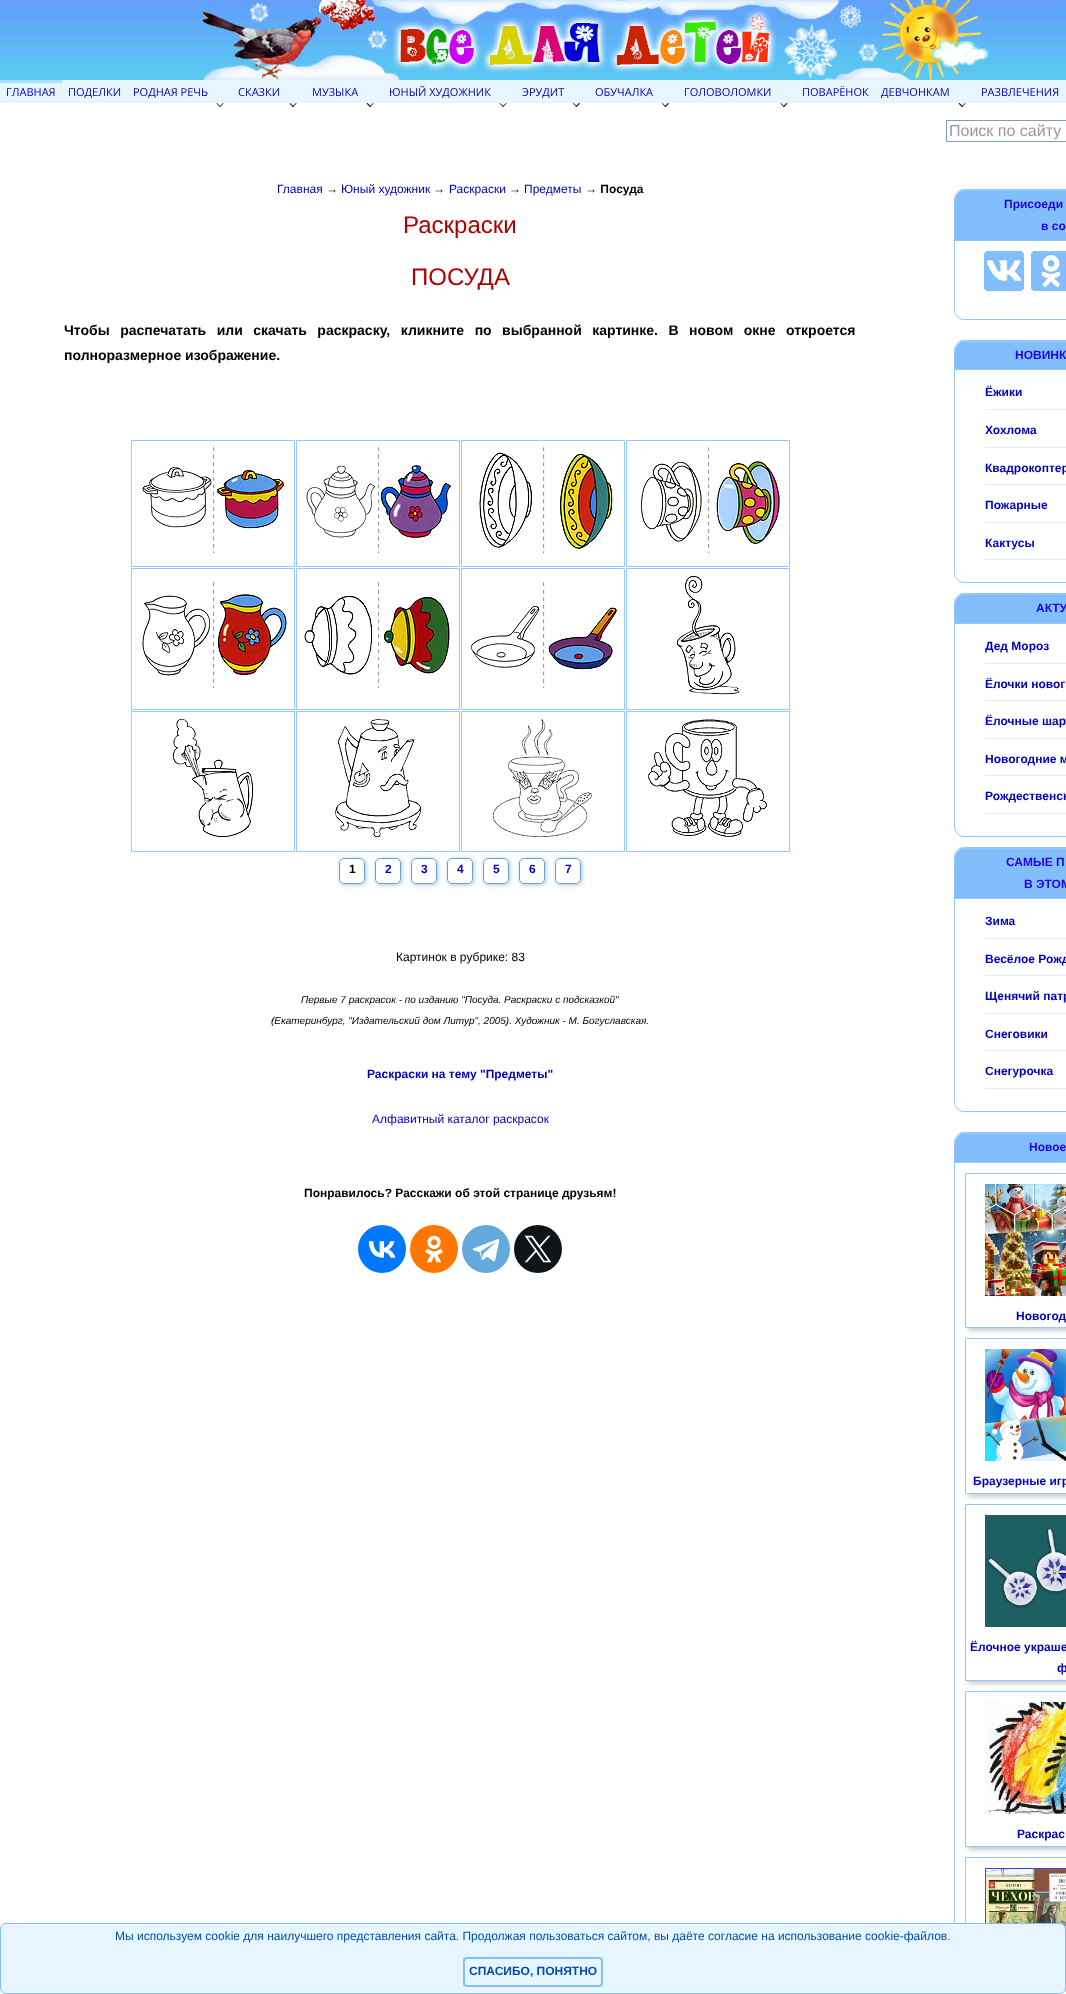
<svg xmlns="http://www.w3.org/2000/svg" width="1066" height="1994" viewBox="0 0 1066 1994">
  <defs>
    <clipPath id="clip1"><path d="M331 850H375V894H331ZM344 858H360C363 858 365 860 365 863V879C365 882 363 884 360 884H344C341 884 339 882 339 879V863C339 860 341 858 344 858Z" clip-rule="evenodd"/></clipPath>
    <clipPath id="clip2"><path d="M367 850H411V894H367ZM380 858H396C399 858 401 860 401 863V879C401 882 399 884 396 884H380C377 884 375 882 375 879V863C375 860 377 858 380 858Z" clip-rule="evenodd"/></clipPath>
    <clipPath id="clip3"><path d="M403 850H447V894H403ZM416 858H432C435 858 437 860 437 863V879C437 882 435 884 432 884H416C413 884 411 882 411 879V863C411 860 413 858 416 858Z" clip-rule="evenodd"/></clipPath>
    <clipPath id="clip4"><path d="M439 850H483V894H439ZM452 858H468C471 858 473 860 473 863V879C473 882 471 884 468 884H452C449 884 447 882 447 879V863C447 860 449 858 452 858Z" clip-rule="evenodd"/></clipPath>
    <clipPath id="clip5"><path d="M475 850H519V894H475ZM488 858H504C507 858 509 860 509 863V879C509 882 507 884 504 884H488C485 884 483 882 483 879V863C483 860 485 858 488 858Z" clip-rule="evenodd"/></clipPath>
    <clipPath id="clip6"><path d="M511 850H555V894H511ZM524 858H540C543 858 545 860 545 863V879C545 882 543 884 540 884H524C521 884 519 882 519 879V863C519 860 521 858 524 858Z" clip-rule="evenodd"/></clipPath>
    <clipPath id="clip7"><path d="M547 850H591V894H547ZM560 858H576C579 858 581 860 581 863V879C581 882 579 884 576 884H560C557 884 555 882 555 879V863C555 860 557 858 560 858Z" clip-rule="evenodd"/></clipPath>
    <clipPath id="clip8"><path d="M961 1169H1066V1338H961ZM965 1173H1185V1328H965Z" clip-rule="evenodd"/></clipPath>
    <clipPath id="clip9"><path d="M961 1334H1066V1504H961ZM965 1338H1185V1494H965Z" clip-rule="evenodd"/></clipPath>
    <clipPath id="clip10"><path d="M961 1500H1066V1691H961ZM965 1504H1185V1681H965Z" clip-rule="evenodd"/></clipPath>
    <clipPath id="clip11"><path d="M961 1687H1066V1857H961ZM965 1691H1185V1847H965Z" clip-rule="evenodd"/></clipPath>
  </defs>
  <rect width="100%" height="100%" fill="#fff"/>
  <image x="0" y="0" width="1066" height="80" href="img/1.png"/>
  <image x="201" y="0" width="788" height="80" href="img/2.png"/>
  <path d="M0 80h1066v23H0z" fill="#e7f6fe"/>
  <path d="M0 80h62v3H0z" fill="#a5e0fe"/>
  <path d="M223 103L223.5 103.5L220 107L219.5 106.5Z" fill="#000"/>
  <path d="M217 103L220.5 106.5L220 107L216.5 103.5Z" fill="#000"/>
  <path d="M296 103L296.5 103.5L293 107L292.5 106.5Z" fill="#000"/>
  <path d="M290 103L294 106.5L293 107L289.5 103.5Z" fill="#000"/>
  <path d="M373 103L373.5 103.5L370 107L369.5 106.5Z" fill="#000"/>
  <path d="M367.5 103L371 106.5L370 107L366.5 103.5Z" fill="#000"/>
  <path d="M506 103L506.5 103.5L503 107L502.5 106.5Z" fill="#000"/>
  <path d="M500 103L503.5 106.5L503 107L499.5 103.5Z" fill="#000"/>
  <path d="M579 103L580 103.5L576.5 107L575.5 106.5Z" fill="#000"/>
  <path d="M573.5 103L577 106.5L576.5 107L573 103.5Z" fill="#000"/>
  <path d="M668 103L669 103.5L665.5 107L664.5 106.5Z" fill="#000"/>
  <path d="M662.5 103L666 106.5L665.5 107L662 103.5Z" fill="#000"/>
  <path d="M786.5 103L787.5 103.5L784 107L783 106.5Z" fill="#000"/>
  <path d="M781 103L784.5 106.5L784 107L780.5 103.5Z" fill="#000"/>
  <path d="M965 103L965.5 103.5L962 107L961.5 106.5Z" fill="#000"/>
  <path d="M959.5 103L963 106.5L962 107L958.5 103.5Z" fill="#000"/>
  <path d="M946.5 120.5h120v21H946.5z" fill="none" stroke="#7f9db9"/>
  <path d="M131.5 440.5h163v126H131.5z" fill="none" stroke="#95c9fc"/>
  <image x="142" y="447" width="142" height="106" href="img/3.png"/>
  <path d="M296.5 440.5h163v126H296.5z" fill="none" stroke="#95c9fc"/>
  <image x="306" y="447" width="145" height="106" href="img/4.png"/>
  <path d="M461.5 440.5h163v126H461.5z" fill="none" stroke="#95c9fc"/>
  <image x="479" y="447" width="134" height="106" href="img/5.png"/>
  <path d="M626.5 440.5h163v126H626.5z" fill="none" stroke="#95c9fc"/>
  <image x="641" y="447" width="139" height="106" href="img/6.png"/>
  <path d="M131.5 568.5h163v141H131.5z" fill="none" stroke="#95c9fc"/>
  <image x="142" y="582" width="145" height="106" href="img/7.png"/>
  <path d="M296.5 568.5h163v141H296.5z" fill="none" stroke="#95c9fc"/>
  <image x="304" y="582" width="146" height="106" href="img/8.png"/>
  <path d="M461.5 568.5h163v141H461.5z" fill="none" stroke="#95c9fc"/>
  <image x="471" y="582" width="146" height="106" href="img/9.png"/>
  <path d="M626.5 568.5h163v141H626.5z" fill="none" stroke="#95c9fc"/>
  <image x="676" y="576" width="64" height="119" href="img/10.png"/>
  <path d="M131.5 711.5h163v140H131.5z" fill="none" stroke="#95c9fc"/>
  <image x="172" y="718" width="81" height="120" href="img/11.png"/>
  <path d="M296.5 711.5h163v140H296.5z" fill="none" stroke="#95c9fc"/>
  <image x="335" y="719" width="86" height="119" href="img/12.png"/>
  <path d="M461.5 711.5h163v140H461.5z" fill="none" stroke="#95c9fc"/>
  <image x="492" y="719" width="101" height="119" href="img/13.png"/>
  <path d="M626.5 711.5h163v140H626.5z" fill="none" stroke="#95c9fc"/>
  <image x="648" y="719" width="119" height="118" href="img/14.png"/>
  <g clip-path="url(#clip1)">
    <rect x="340" y="859" width="26" height="26" rx="5" fill="#5a8cb480" filter="blur(2.5px)"/>
  </g>
  <rect x="339.5" y="858.5" width="25" height="25" rx="4.5" fill="none" stroke="#6f9ecb"/>
  <g clip-path="url(#clip2)">
    <rect x="376" y="859" width="26" height="26" rx="5" fill="#5a8cb480" filter="blur(2.5px)"/>
  </g>
  <rect x="375.5" y="858.5" width="25" height="25" rx="4.5" fill="none" stroke="#6f9ecb"/>
  <g clip-path="url(#clip3)">
    <rect x="412" y="859" width="26" height="26" rx="5" fill="#5a8cb480" filter="blur(2.5px)"/>
  </g>
  <rect x="411.5" y="858.5" width="25" height="25" rx="4.5" fill="none" stroke="#6f9ecb"/>
  <g clip-path="url(#clip4)">
    <rect x="448" y="859" width="26" height="26" rx="5" fill="#5a8cb480" filter="blur(2.5px)"/>
  </g>
  <rect x="447.5" y="858.5" width="25" height="25" rx="4.5" fill="none" stroke="#6f9ecb"/>
  <g clip-path="url(#clip5)">
    <rect x="484" y="859" width="26" height="26" rx="5" fill="#5a8cb480" filter="blur(2.5px)"/>
  </g>
  <rect x="483.5" y="858.5" width="25" height="25" rx="4.5" fill="none" stroke="#6f9ecb"/>
  <g clip-path="url(#clip6)">
    <rect x="520" y="859" width="26" height="26" rx="5" fill="#5a8cb480" filter="blur(2.5px)"/>
  </g>
  <rect x="519.5" y="858.5" width="25" height="25" rx="4.5" fill="none" stroke="#6f9ecb"/>
  <g clip-path="url(#clip7)">
    <rect x="556" y="859" width="26" height="26" rx="5" fill="#5a8cb480" filter="blur(2.5px)"/>
  </g>
  <rect x="555.5" y="858.5" width="25" height="25" rx="4.5" fill="none" stroke="#6f9ecb"/>
  <circle cx="382" cy="1249" r="24" fill="#07f"/>
  <image x="368" y="1241" width="28" height="17" href="img/15.png"/>
  <circle cx="434" cy="1249" r="24" fill="#f70"/>
  <image x="425" y="1235" width="18" height="28" href="img/16.png"/>
  <circle cx="486" cy="1249" r="24" fill="#64a9dc"/>
  <image x="472" y="1239" width="28" height="23" href="img/17.png"/>
  <circle cx="538" cy="1249" r="24" fill="#0f1419"/>
  <image x="524" y="1235" width="28" height="28" href="img/18.png"/>
  <rect x="954.5" y="189.5" width="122" height="130" rx="9.5" fill="none" stroke="#95c9fc"/>
  <path d="M965 190H1066C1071.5 190 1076 194.5 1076 200V241H955V200C955 194.5 959.5 190 965 190Z" fill="#82befb"/>
  <path d="M960 190h106v1H960z" fill="#95c9fc"/>
  <path d="M955 240h111v1H955z" fill="#95c9fc"/>
  <image x="984" y="251" width="40" height="40" href="img/19.png"/>
  <image x="1031" y="251" width="35" height="40" href="img/20.png"/>
  <rect x="954.5" y="340.5" width="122" height="242" rx="9.5" fill="none" stroke="#95c9fc"/>
  <path d="M965 341H1066C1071.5 341 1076 345.5 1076 351V370H955V351C955 345.5 959.5 341 965 341Z" fill="#82befb"/>
  <path d="M960 341h106v1H960z" fill="#95c9fc"/>
  <path d="M955 369h111v1H955z" fill="#95c9fc"/>
  <path d="M985 409h81v1H985z" fill="#e4ecf4"/>
  <path d="M985 447h81v1H985z" fill="#e4ecf4"/>
  <path d="M985 484h81v1H985z" fill="#e4ecf4"/>
  <path d="M985 522h81v1H985z" fill="#e4ecf4"/>
  <path d="M985 559h81v1H985z" fill="#e4ecf4"/>
  <rect x="954.5" y="593.5" width="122" height="243" rx="9.5" fill="none" stroke="#95c9fc"/>
  <path d="M965 594H1066C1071.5 594 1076 598.5 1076 604V624H955V604C955 598.5 959.5 594 965 594Z" fill="#82befb"/>
  <path d="M960 594h106v1H960z" fill="#95c9fc"/>
  <path d="M955 623h111v1H955z" fill="#95c9fc"/>
  <path d="M985 663h81v1H985z" fill="#e4ecf4"/>
  <path d="M985 700h81v1H985z" fill="#e4ecf4"/>
  <path d="M985 738h81v1H985z" fill="#e4ecf4"/>
  <path d="M985 775h81v1H985z" fill="#e4ecf4"/>
  <path d="M985 813h81v1H985z" fill="#e4ecf4"/>
  <rect x="954.5" y="847.5" width="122" height="264" rx="9.5" fill="none" stroke="#95c9fc"/>
  <path d="M965 848H1066C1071.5 848 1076 852.5 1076 858V899H955V858C955 852.5 959.5 848 965 848Z" fill="#82befb"/>
  <path d="M960 848h106v1H960z" fill="#95c9fc"/>
  <path d="M955 898h111v1H955z" fill="#95c9fc"/>
  <path d="M985 938h81v1H985z" fill="#e4ecf4"/>
  <path d="M985 975h81v1H985z" fill="#e4ecf4"/>
  <path d="M985 1013h81v1H985z" fill="#e4ecf4"/>
  <path d="M985 1050h81v1H985z" fill="#e4ecf4"/>
  <path d="M985 1088h81v1H985z" fill="#e4ecf4"/>
  <rect x="954.5" y="1132.5" width="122" height="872" rx="9.5" fill="none" stroke="#95c9fc"/>
  <path d="M965 1133H1066C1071.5 1133 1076 1137.5 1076 1143V1163H955V1143C955 1137.5 959.5 1133 965 1133Z" fill="#82befb"/>
  <path d="M960 1133h106v1H960z" fill="#95c9fc"/>
  <path d="M955 1162h111v1H955z" fill="#95c9fc"/>
  <g clip-path="url(#clip8)">
    <path d="M968 1176h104v155H968z" fill="#ccc" filter="blur(2px)"/>
  </g>
  <path d="M965.5 1173.5h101v154H965.5z" fill="none" stroke="#95c9fc"/>
  <image x="985" y="1184" width="81" height="112" href="img/21.png"/>
  <g clip-path="url(#clip9)">
    <path d="M968 1341h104v156H968z" fill="#ccc" filter="blur(2px)"/>
  </g>
  <path d="M965.5 1338.5h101v155H965.5z" fill="none" stroke="#95c9fc"/>
  <image x="985" y="1349" width="81" height="112" href="img/22.png"/>
  <g clip-path="url(#clip10)">
    <path d="M968 1507h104v177H968z" fill="#ccc" filter="blur(2px)"/>
  </g>
  <path d="M965.5 1504.5h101v176H965.5z" fill="none" stroke="#95c9fc"/>
  <image x="985" y="1515" width="81" height="112" href="img/23.png"/>
  <g clip-path="url(#clip11)">
    <path d="M968 1694h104v156H968z" fill="#ccc" filter="blur(2px)"/>
  </g>
  <path d="M965.5 1691.5h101v155H965.5z" fill="none" stroke="#95c9fc"/>
  <image x="985" y="1702" width="81" height="112" href="img/24.png"/>
  <path d="M965.5 1857.5h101v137H965.5z" fill="none" stroke="#95c9fc"/>
  <image x="985" y="1868" width="81" height="61" href="img/25.png"/>
  <rect x="0.5" y="1923.5" width="1065" height="70" rx="5.5" fill="#e7f6fe" stroke="#82befb"/>
  <rect x="464" y="1958" width="138" height="28" rx="3" fill="none" stroke="#82befb" stroke-width="2"/>
  <g font-family="Open Sans" font-size="11" fill="#0000b3">
    <text x="6" y="96">ГЛАВНАЯ</text>
    <text x="68" y="96">ПОДЕЛКИ</text>
    <text x="133" y="96">РОДНАЯ РЕЧЬ</text>
    <text x="238" y="96">СКАЗКИ</text>
    <text x="312" y="96">МУЗЫКА</text>
    <text x="389" y="96">ЮНЫЙ ХУДОЖНИК</text>
    <text x="522" y="96">ЭРУДИТ</text>
    <text x="595" y="96">ОБУЧАЛКА</text>
    <text x="684" y="96">ГОЛОВОЛОМКИ</text>
    <text x="802" y="96">ПОВАРЁНОК</text>
    <text x="881" y="96">ДЕВЧОНКАМ</text>
    <text x="981" y="96">РАЗВЛЕЧЕНИЯ</text>
  </g>
  <text x="949" y="136" font-family="Liberation Sans" font-size="16" fill="#999">Поиск по сайту</text>
  <text x="277" y="193" font-family="Liberation Sans" font-size="12" fill="#0000c0">Главная</text>
  <text x="326" y="193" font-family="Liberation Sans" font-size="12" font-weight="bold" fill="#000">→</text>
  <text x="341" y="193" font-family="Liberation Sans" font-size="12" fill="#0000c0">Юный художник</text>
  <text x="433" y="193" font-family="Liberation Sans" font-size="12" font-weight="bold" fill="#000">→</text>
  <text x="449" y="193" font-family="Liberation Sans" font-size="12" fill="#0000c0">Раскраски</text>
  <text x="509" y="193" font-family="Liberation Sans" font-size="12" font-weight="bold" fill="#000">→</text>
  <text x="524" y="193" font-family="Liberation Sans" font-size="12" fill="#0000c0">Предметы</text>
  <text x="585" y="193" font-family="Liberation Sans" font-size="12" font-weight="bold" fill="#000">→ Посуда</text>
  <g font-family="Liberation Sans" font-size="24" fill="#ae0000">
    <text x="403" y="233">Раскраски</text>
    <text x="411" y="285">ПОСУДА</text>
  </g>
  <g font-family="Liberation Sans" font-size="14" font-weight="bold" fill="#000">
    <text x="64" y="335" word-spacing="6.6">Чтобы распечатать или скачать раскраску, кликните по выбранной картинке. В новом окне откроется</text>
    <text x="64" y="360">полноразмерное изображение.</text>
  </g>
  <text x="349" y="873" font-family="Liberation Sans" font-size="12" font-weight="bold" fill="#000">1</text>
  <g font-family="Liberation Sans" font-size="12" font-weight="bold" fill="#0000c0">
    <text x="385" y="873">2</text>
    <text x="421" y="873">3</text>
    <text x="457" y="873">4</text>
    <text x="493" y="873">5</text>
    <text x="529" y="873">6</text>
    <text x="565" y="873">7</text>
  </g>
  <text x="396" y="961" font-family="Liberation Sans" font-size="12" fill="#000">Картинок в рубрике: 83</text>
  <g font-family="Liberation Sans" font-size="10" font-style="italic" fill="#000">
    <text x="301" y="1003">Первые 7 раскрасок - по изданию "Посуда. Раскраски с подсказкой"</text>
    <text x="271" y="1024">(Екатеринбург, "Издательский дом Литур", 2005). Художник - М. Богуславская.</text>
  </g>
  <text x="367" y="1078" font-family="Liberation Sans" font-size="12" font-weight="bold" fill="#0000c0">Раскраски на тему "Предметы"</text>
  <text x="372" y="1123" font-family="Liberation Sans" font-size="12" fill="#0000c0">Алфавитный каталог раскрасок</text>
  <text x="304" y="1197" font-family="Liberation Sans" font-size="12" font-weight="bold" fill="#000">Понравилось? Расскажи об этой странице друзьям!</text>
  <g font-family="Liberation Sans" font-size="12" font-weight="bold" fill="#2304e4">
    <text x="1004" y="208">Присоеди</text>
    <text x="1041" y="230">в со</text>
    <text x="1015" y="359">НОВИНК</text>
  </g>
  <g font-family="Liberation Sans" font-size="12" font-weight="bold" fill="#0000c0">
    <text x="985" y="396">Ёжики</text>
    <text x="985" y="434">Хохлома</text>
    <text x="985" y="472">Квадрокоптер</text>
    <text x="985" y="509">Пожарные</text>
    <text x="985" y="547">Кактусы</text>
  </g>
  <text x="1036" y="612" font-family="Liberation Sans" font-size="12" font-weight="bold" fill="#2304e4">АКТУ</text>
  <g font-family="Liberation Sans" font-size="12" font-weight="bold" fill="#0000c0">
    <text x="985" y="650">Дед Мороз</text>
    <text x="985" y="688">Ёлочки новог</text>
    <text x="985" y="725">Ёлочные шар</text>
    <text x="985" y="763">Новогодние м</text>
    <text x="985" y="800">Рождественск</text>
  </g>
  <g font-family="Liberation Sans" font-size="12" font-weight="bold" fill="#2304e4">
    <text x="1006" y="866">САМЫЕ П</text>
    <text x="1024" y="888">В ЭТОМ</text>
  </g>
  <g font-family="Liberation Sans" font-size="12" font-weight="bold" fill="#0000c0">
    <text x="985" y="925">Зима</text>
    <text x="985" y="963">Весёлое Рожд</text>
    <text x="985" y="1000">Щенячий патр</text>
    <text x="985" y="1038">Снеговики</text>
    <text x="985" y="1075">Снегурочка</text>
  </g>
  <text x="1029" y="1151" font-family="Liberation Sans" font-size="12" font-weight="bold" fill="#2304e4">Новое</text>
  <g font-family="Liberation Sans" font-size="12" font-weight="bold" fill="#0000c0">
    <text x="1016" y="1320">Новогод</text>
    <text x="973" y="1485">Браузерные игр</text>
    <text x="970" y="1651">Ёлочное украше</text>
    <text x="1057" y="1672">ф</text>
    <text x="1017" y="1838">Раскрас</text>
  </g>
  <text x="115" y="1940" font-family="Liberation Sans" font-size="12" fill="#004dad">Мы используем cookie для наилучшего представления сайта. Продолжая пользоваться сайтом, вы даёте согласие на использование cookie-файлов.</text>
  <text x="469" y="1975" font-family="Liberation Sans" font-size="12" font-weight="bold" fill="#004dad">СПАСИБО, ПОНЯТНО</text>
</svg>
